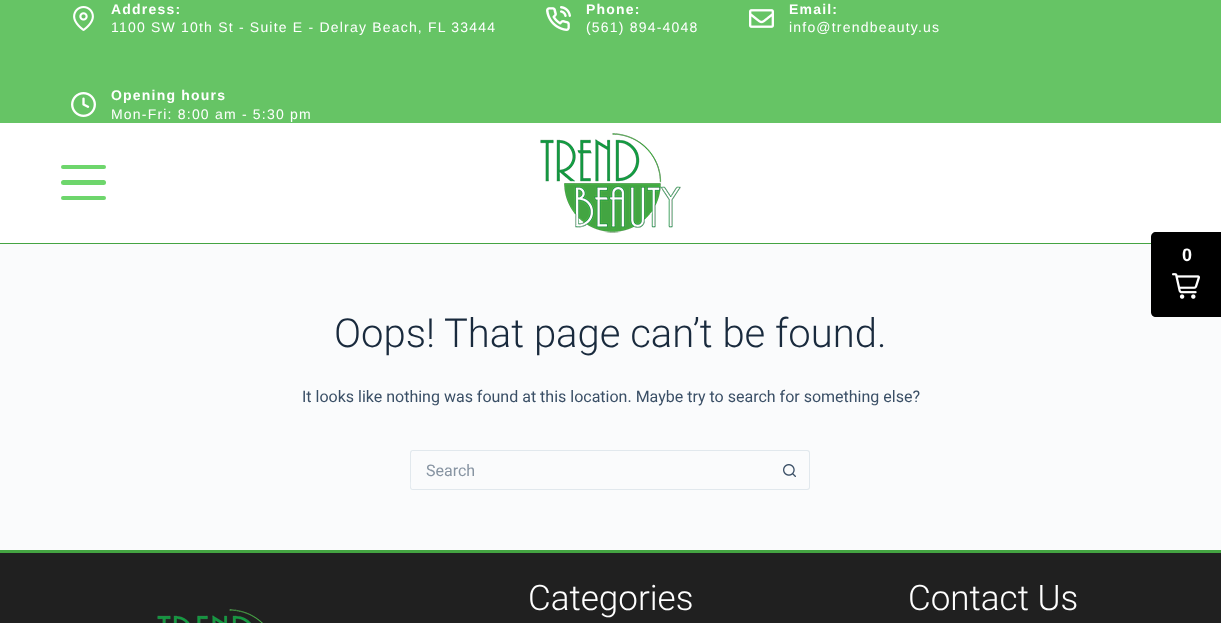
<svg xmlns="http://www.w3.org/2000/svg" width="1221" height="623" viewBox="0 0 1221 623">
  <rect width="100%" height="100%" fill="#fafbfc"/>
  <path d="M0 0h1221v123H0z" fill="#66c465"/>
  <image x="73" y="6" width="21" height="25" href="img/1.png"/>
  <image x="546" y="6" width="25" height="25" href="img/2.png"/>
  <image x="749" y="9" width="25" height="19" href="img/3.png"/>
  <image x="71" y="92" width="25" height="25" href="img/4.png"/>
  <path d="M0 123h1221v120H0z" fill="#fff"/>
  <path d="M0 243h1151v1H0z" fill="#44a442"/>
  <rect x="61" y="165" width="45" height="4" rx="2" fill="#6ed66c"/>
  <rect x="61" y="180" width="45" height="5" rx="2.5" fill="#6ed66c"/>
  <rect x="61" y="196" width="45" height="4" rx="2" fill="#6ed66c"/>
  <image x="540" y="133" width="141" height="100" href="img/5.png"/>
  <path d="M413 450H770V490H413C411 490 410 489 410 487V453C410 451 411 450 413 450ZM413 451H770V489H412C410 487 411 482 411 481V453L412 451Z" fill="#e1e8ed" fill-rule="evenodd"/>
  <path d="M770 450H807C809 450 810 451 810 453V487C810 489 809 490 807 490H770ZM770 451H807C808 451 809 452 809 453V487C809 488 808 489 807 489H770Z" fill="#e1e8ed" fill-rule="evenodd"/>
  <image x="783" y="464" width="13" height="13" href="img/6.png"/>
  <path d="M0 553h1221v70H0z" fill="#202020"/>
  <path d="M0 550h1221v3H0z" fill="#44a442"/>
  <image x="157" y="609" width="106" height="14" href="img/7.png"/>
  <path d="M1156 232H1221V317H1156C1153 317 1151 315 1151 312V237C1151 234 1153 232 1156 232Z" fill="#000"/>
  <image x="1172" y="273" width="28" height="26" href="img/8.png"/>
  <text x="111" y="14" font-family="Liberation Sans" font-size="14" font-weight="bold" letter-spacing="1.2" fill="#fff">Address:</text>
  <text x="111" y="32" font-family="Liberation Sans" font-size="14" letter-spacing="1.2" fill="#fff">1100 SW 10th St - Suite E - Delray Beach, FL 33444</text>
  <text x="586" y="14" font-family="Liberation Sans" font-size="14" font-weight="bold" letter-spacing="1.2" fill="#fff">Phone:</text>
  <text x="586" y="32" font-family="Liberation Sans" font-size="14" letter-spacing="1.2" fill="#fff">(561) 894-4048</text>
  <text x="789" y="14" font-family="Liberation Sans" font-size="14" font-weight="bold" letter-spacing="1.2" fill="#fff">Email:</text>
  <text x="789" y="32" font-family="Liberation Sans" font-size="14" letter-spacing="1.2" fill="#fff">info@trendbeauty.us</text>
  <text x="111" y="100" font-family="Liberation Sans" font-size="14" font-weight="bold" letter-spacing="1.2" fill="#fff">Opening hours</text>
  <text x="111" y="119" font-family="Liberation Sans" font-size="14" letter-spacing="1.2" fill="#fff">Mon-Fri: 8:00 am - 5:30 pm</text>
  <text x="334" y="347" font-family="Roboto" font-size="40" font-weight="300" fill="#192a3d">Oops! That page can’t be found.</text>
  <text x="302" y="402" font-family="Roboto" font-size="16" fill="#3a4f66">It looks like nothing was found at this location. Maybe try to search for something else?</text>
  <text x="426" y="476" font-family="Roboto" font-size="16" fill="#8794a2">Search</text>
  <g font-family="Roboto" font-size="35" font-weight="300" fill="#fff">
    <text x="528" y="610">Categories</text>
    <text x="908" y="610">Contact Us</text>
  </g>
  <text x="1182" y="261" font-family="Liberation Sans" font-size="18" font-weight="bold" fill="#fff">0</text>
</svg>
